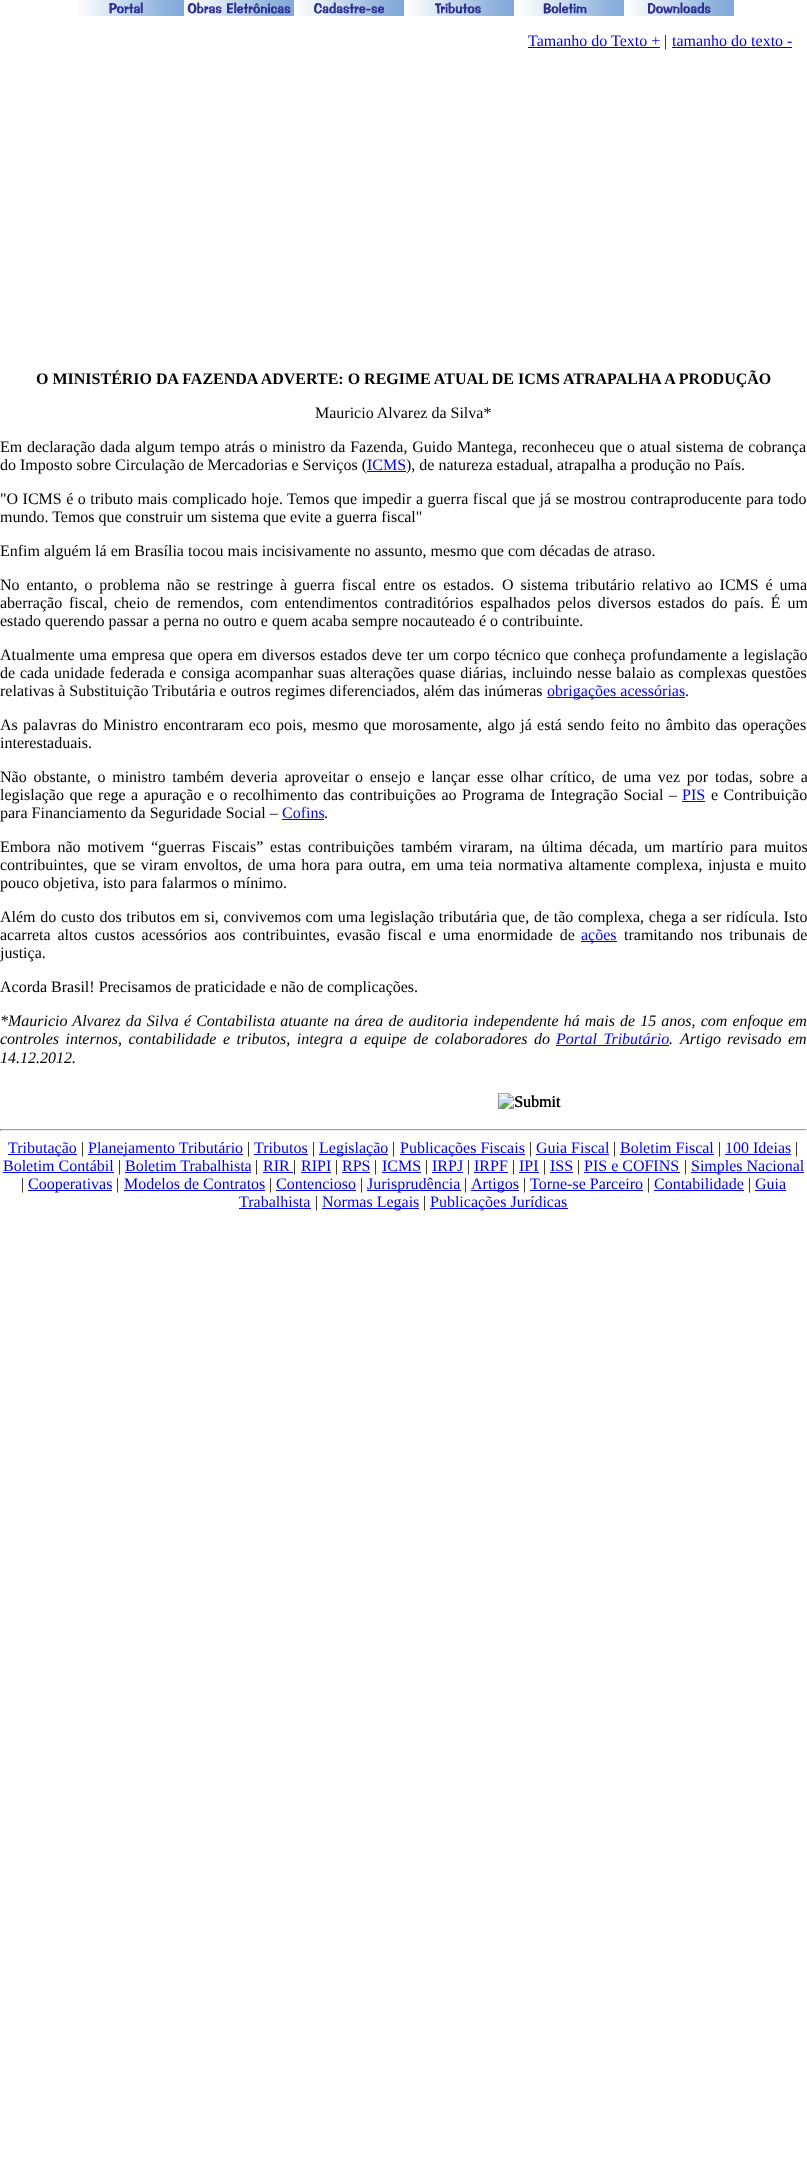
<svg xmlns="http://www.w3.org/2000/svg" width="807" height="2165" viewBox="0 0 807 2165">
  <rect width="100%" height="100%" fill="#fff"/>
  <image x="78" y="0" width="106" height="16" href="img/1.png"/>
  <image x="186" y="0" width="108" height="16" href="img/2.png"/>
  <image x="298" y="0" width="106" height="16" href="img/3.png"/>
  <image x="408" y="0" width="106" height="16" href="img/4.png"/>
  <image x="520" y="0" width="104" height="16" href="img/5.png"/>
  <image x="628" y="0" width="106" height="16" href="img/6.png"/>
  <path d="M528 47h132v1H528z" fill="#00e"/>
  <path d="M672 47h120v1H672z" fill="#00e"/>
  <path d="M367 471h39v1H367z" fill="#00f"/>
  <path d="M547 697h138v1H547z" fill="#00f"/>
  <path d="M682 801h23v1H682z" fill="#00f"/>
  <path d="M282 819h42v1H282z" fill="#00f"/>
  <path d="M581 941h36v1H581z" fill="#00f"/>
  <path d="M556 1045h113v1H556z" fill="#00f"/>
  <image x="498" y="1093" width="63" height="16" href="img/7.png"/>
  <path d="M0 1129h807v1H0z" fill="#9f9f9f"/>
  <path d="M806 1129h1v2H806z" fill="#eee"/>
  <path d="M0 1130h807v1H0z" fill="#eee"/>
  <path d="M0 1129h1v2H0z" fill="#9f9f9f"/>
  <path d="M8 1154h69v1H8z" fill="#00e"/>
  <path d="M88 1154h155v1H88z" fill="#00e"/>
  <path d="M254 1154h54v1H254z" fill="#00e"/>
  <path d="M319 1154h69v1H319z" fill="#00e"/>
  <path d="M400 1154h125v1H400z" fill="#00e"/>
  <path d="M536 1154h73v1H536z" fill="#00e"/>
  <path d="M620 1154h94v1H620z" fill="#00e"/>
  <path d="M725 1154h66v1H725z" fill="#00e"/>
  <path d="M3 1172h111v1H3z" fill="#00e"/>
  <path d="M125 1172h126v1H125z" fill="#00e"/>
  <path d="M263 1172h30v1H263z" fill="#00e"/>
  <path d="M301 1172h30v1H301z" fill="#00e"/>
  <path d="M342 1172h28v1H342z" fill="#00e"/>
  <path d="M382 1172h39v1H382z" fill="#00e"/>
  <path d="M432 1172h31v1H432z" fill="#00e"/>
  <path d="M474 1172h34v1H474z" fill="#00e"/>
  <path d="M519 1172h20v1H519z" fill="#00e"/>
  <path d="M550 1172h23v1H550z" fill="#00e"/>
  <path d="M584 1172h96v1H584z" fill="#00e"/>
  <path d="M691 1172h113v1H691z" fill="#00e"/>
  <path d="M28 1190h84v1H28z" fill="#00e"/>
  <path d="M124 1190h141v1H124z" fill="#00e"/>
  <path d="M276 1190h80v1H276z" fill="#00e"/>
  <path d="M367 1190h94v1H367z" fill="#00e"/>
  <path d="M471 1190h48v1H471z" fill="#00e"/>
  <path d="M530 1190h113v1H530z" fill="#00e"/>
  <path d="M654 1190h90v1H654z" fill="#00e"/>
  <path d="M755 1190h31v1H755z" fill="#00e"/>
  <path d="M239 1208h72v1H239z" fill="#00e"/>
  <path d="M322 1208h97v1H322z" fill="#00e"/>
  <path d="M430 1208h138v1H430z" fill="#00e"/>
  <text x="528" y="46" font-family="Liberation Serif" font-size="16" fill="#00e">Tamanho do Texto +</text>
  <text x="664" y="46" font-family="Liberation Serif" font-size="16" fill="#000">|</text>
  <text x="672" y="46" font-family="Liberation Serif" font-size="16" fill="#00e">tamanho do texto -</text>
  <text x="36" y="384" font-family="Liberation Serif" font-size="16" font-weight="bold" fill="#000">O MINISTÉRIO DA FAZENDA ADVERTE: O REGIME ATUAL DE ICMS ATRAPALHA A PRODUÇÃO</text>
  <g font-family="Liberation Serif" font-size="16" fill="#000">
    <text x="315" y="418">Mauricio Alvarez da Silva*</text>
    <text x="0" y="452" word-spacing="0.75">Em declaração dada</text>
    <text x="135" y="452" word-spacing="0.75">algum tempo atrás o ministro da Fazenda, Guido Mantega, reconheceu que o atual sistema de cobrança</text>
    <text x="0" y="470">do Imposto sobre Circulação de Mercadorias e Serviços (</text>
  </g>
  <text x="367" y="470" font-family="Liberation Serif" font-size="16" fill="#00f">ICMS</text>
  <g font-family="Liberation Serif" font-size="16" fill="#000">
    <text x="406" y="470">), de natureza estadual, atrapalha a produção no País.</text>
    <text x="0" y="504" word-spacing="0.5">"O ICMS é o tributo mais complicado hoje. Temos que impedir a guerra fiscal que já se mostrou contraproducente para todo</text>
    <text x="0" y="522">mundo. Temos que construir um sistema que evite a guerra fiscal"</text>
    <text x="0" y="556">Enfim alguém lá em Brasília tocou mais incisivamente no assunto, mesmo que com décadas de atraso.</text>
    <text x="0" y="590" word-spacing="2.9">No entanto, o problema não se</text>
    <text x="217" y="590" word-spacing="2.9">restringe à guerra fiscal entre os estados.</text>
    <text x="502" y="590" word-spacing="2.9">O sistema tributário relativo ao ICMS é uma</text>
    <text x="0" y="608" word-spacing="2.75">aberração fiscal,</text>
    <text x="114" y="608" word-spacing="2.75">cheio de remendos, com entendimentos contraditórios espalhados pelos diversos estados do país. É um</text>
    <text x="0" y="626">estado querendo passar a perna no outro e quem acaba sempre nocauteado é o contribuinte.</text>
    <text x="0" y="660" word-spacing="0.7">Atualmente uma empresa que opera em diversos estados deve ter um corpo técnico que conheça profundamente a legislação</text>
    <text x="0" y="678" word-spacing="0.8">de cada unidade federada e consiga acompanhar suas alterações quase diárias, incluindo nesse balaio as complexas questões</text>
    <text x="0" y="696">relativas à Substituição Tributária e outros regimes diferenciados, além das inúmeras</text>
  </g>
  <text x="547" y="696" font-family="Liberation Serif" font-size="16" fill="#00f">obrigações acessórias</text>
  <g font-family="Liberation Serif" font-size="16" fill="#000">
    <text x="685" y="696">.</text>
    <text x="0" y="730" word-spacing="1.3">As palavras do Ministro encontraram eco</text>
    <text x="276" y="730" word-spacing="1.3">pois, mesmo que morosamente, algo já está sendo feito no âmbito das operações</text>
    <text x="0" y="748">interestaduais.</text>
    <text x="0" y="782" word-spacing="2.75">Não obstante, o ministro também deveria aproveitar</text>
    <text x="355" y="782" word-spacing="2.75">o ensejo e lançar esse olhar crítico, de uma vez por todas, sobre a</text>
    <text x="0" y="800" word-spacing="1.5">legislação que rege a apuração e o recolhimento das contribuições ao Programa de Integração Social –</text>
  </g>
  <text x="682" y="800" font-family="Liberation Serif" font-size="16" fill="#00f">PIS</text>
  <g font-family="Liberation Serif" font-size="16" fill="#000">
    <text x="711" y="800" word-spacing="1.5">e Contribuição</text>
    <text x="0" y="818">para Financiamento da Seguridade Social –</text>
  </g>
  <text x="282" y="818" font-family="Liberation Serif" font-size="16" fill="#00f">Cofins</text>
  <g font-family="Liberation Serif" font-size="16" fill="#000">
    <text x="324" y="818">.</text>
    <text x="0" y="852" word-spacing="2.75">Embora não motivem “guerras Fiscais” estas contribuições também viraram, na última década, um martírio para muitos</text>
    <text x="0" y="870" word-spacing="1.6">contribuintes, que se viram envoltos, de uma hora para outra, em uma teia normativa altamente complexa, injusta e muito</text>
    <text x="0" y="888">pouco objetiva, isto para falarmos o mínimo.</text>
    <text x="0" y="922" word-spacing="0.7">Além do custo dos tributos em si, convivemos com uma legislação tributária que, de tão complexa, chega a ser ridícula. Isto</text>
    <text x="0" y="940" word-spacing="2.9">acarreta altos custos acessórios aos contribuintes, evasão fiscal e uma enormidade de</text>
  </g>
  <text x="581" y="940" font-family="Liberation Serif" font-size="16" fill="#00f">ações</text>
  <g font-family="Liberation Serif" font-size="16" fill="#000">
    <text x="624" y="940" word-spacing="2.9">tramitando nos tribunais de</text>
    <text x="0" y="958">justiça.</text>
    <text x="0" y="992">Acorda Brasil! Precisamos de praticidade e não de complicações.</text>
  </g>
  <g font-family="Liberation Serif" font-size="16" font-style="italic" fill="#000">
    <text x="0" y="1026" word-spacing="1.1">*Mauricio Alvarez da Silva é Contabilista atuante na área de auditoria independente há mais de 15 anos, com enfoque em</text>
    <text x="0" y="1044" word-spacing="2.5">controles internos, contabilidade e tributos, integra a equipe de colaboradores do</text>
  </g>
  <text x="556" y="1044" word-spacing="2.5" font-family="Liberation Serif" font-size="16" font-style="italic" fill="#00f">Portal Tributário</text>
  <g font-family="Liberation Serif" font-size="16" font-style="italic" fill="#000">
    <text x="669" y="1044">.</text>
    <text x="680" y="1044">Artigo</text>
    <text x="727" y="1044" word-spacing="2.5">revisado em</text>
    <text x="0" y="1063">14.12.2012.</text>
  </g>
  <text x="514" y="1107" font-family="Liberation Serif" font-size="16" fill="#000">Submit</text>
  <text x="8" y="1153" font-family="Liberation Serif" font-size="16" fill="#00e">Tributação</text>
  <text x="81" y="1153" font-family="Liberation Serif" font-size="16" fill="#000">|</text>
  <text x="88" y="1153" font-family="Liberation Serif" font-size="16" fill="#00e">Planejamento Tributário</text>
  <text x="247" y="1153" font-family="Liberation Serif" font-size="16" fill="#000">|</text>
  <text x="254" y="1153" font-family="Liberation Serif" font-size="16" fill="#00e">Tributos</text>
  <text x="312" y="1153" font-family="Liberation Serif" font-size="16" fill="#000">|</text>
  <text x="319" y="1153" font-family="Liberation Serif" font-size="16" fill="#00e">Legislação</text>
  <text x="392" y="1153" font-family="Liberation Serif" font-size="16" fill="#000">|</text>
  <text x="400" y="1153" font-family="Liberation Serif" font-size="16" fill="#00e">Publicações Fiscais</text>
  <text x="529" y="1153" font-family="Liberation Serif" font-size="16" fill="#000">|</text>
  <text x="536" y="1153" font-family="Liberation Serif" font-size="16" fill="#00e">Guia Fiscal</text>
  <text x="613" y="1153" font-family="Liberation Serif" font-size="16" fill="#000">|</text>
  <text x="620" y="1153" font-family="Liberation Serif" font-size="16" fill="#00e">Boletim Fiscal</text>
  <text x="718" y="1153" font-family="Liberation Serif" font-size="16" fill="#000">|</text>
  <text x="725" y="1153" font-family="Liberation Serif" font-size="16" fill="#00e">100 Ideias</text>
  <text x="795" y="1153" font-family="Liberation Serif" font-size="16" fill="#000">|</text>
  <text x="3" y="1171" font-family="Liberation Serif" font-size="16" fill="#00e">Boletim Contábil</text>
  <text x="118" y="1171" font-family="Liberation Serif" font-size="16" fill="#000">|</text>
  <text x="125" y="1171" font-family="Liberation Serif" font-size="16" fill="#00e">Boletim Trabalhista</text>
  <text x="255" y="1171" font-family="Liberation Serif" font-size="16" fill="#000">|</text>
  <text x="263" y="1171" font-family="Liberation Serif" font-size="16" fill="#00e">RIR</text>
  <text x="293" y="1171" font-family="Liberation Serif" font-size="16" fill="#000">|</text>
  <text x="301" y="1171" font-family="Liberation Serif" font-size="16" fill="#00e">RIPI</text>
  <text x="335" y="1171" font-family="Liberation Serif" font-size="16" fill="#000">|</text>
  <text x="342" y="1171" font-family="Liberation Serif" font-size="16" fill="#00e">RPS</text>
  <text x="374" y="1171" font-family="Liberation Serif" font-size="16" fill="#000">|</text>
  <text x="382" y="1171" font-family="Liberation Serif" font-size="16" fill="#00e">ICMS</text>
  <text x="425" y="1171" font-family="Liberation Serif" font-size="16" fill="#000">|</text>
  <text x="432" y="1171" font-family="Liberation Serif" font-size="16" fill="#00e">IRPJ</text>
  <text x="467" y="1171" font-family="Liberation Serif" font-size="16" fill="#000">|</text>
  <text x="474" y="1171" font-family="Liberation Serif" font-size="16" fill="#00e">IRPF</text>
  <text x="512" y="1171" font-family="Liberation Serif" font-size="16" fill="#000">|</text>
  <text x="519" y="1171" font-family="Liberation Serif" font-size="16" fill="#00e">IPI</text>
  <text x="543" y="1171" font-family="Liberation Serif" font-size="16" fill="#000">|</text>
  <text x="550" y="1171" font-family="Liberation Serif" font-size="16" fill="#00e">ISS</text>
  <text x="577" y="1171" font-family="Liberation Serif" font-size="16" fill="#000">|</text>
  <text x="584" y="1171" font-family="Liberation Serif" font-size="16" fill="#00e">PIS e COFINS</text>
  <text x="684" y="1171" font-family="Liberation Serif" font-size="16" fill="#000">|</text>
  <text x="691" y="1171" font-family="Liberation Serif" font-size="16" fill="#00e">Simples Nacional</text>
  <text x="21" y="1189" font-family="Liberation Serif" font-size="16" fill="#000">|</text>
  <text x="28" y="1189" font-family="Liberation Serif" font-size="16" fill="#00e">Cooperativas</text>
  <text x="116" y="1189" font-family="Liberation Serif" font-size="16" fill="#000">|</text>
  <text x="124" y="1189" font-family="Liberation Serif" font-size="16" fill="#00e">Modelos de Contratos</text>
  <text x="269" y="1189" font-family="Liberation Serif" font-size="16" fill="#000">|</text>
  <text x="276" y="1189" font-family="Liberation Serif" font-size="16" fill="#00e">Contencioso</text>
  <text x="360" y="1189" font-family="Liberation Serif" font-size="16" fill="#000">|</text>
  <text x="367" y="1189" font-family="Liberation Serif" font-size="16" fill="#00e">Jurisprudência</text>
  <text x="464" y="1189" font-family="Liberation Serif" font-size="16" fill="#000">|</text>
  <text x="471" y="1189" font-family="Liberation Serif" font-size="16" fill="#00e">Artigos</text>
  <text x="523" y="1189" font-family="Liberation Serif" font-size="16" fill="#000">|</text>
  <text x="530" y="1189" font-family="Liberation Serif" font-size="16" fill="#00e">Torne-se Parceiro</text>
  <text x="647" y="1189" font-family="Liberation Serif" font-size="16" fill="#000">|</text>
  <text x="654" y="1189" font-family="Liberation Serif" font-size="16" fill="#00e">Contabilidade</text>
  <text x="748" y="1189" font-family="Liberation Serif" font-size="16" fill="#000">|</text>
  <g font-family="Liberation Serif" font-size="16" fill="#00e">
    <text x="755" y="1189">Guia</text>
    <text x="239" y="1207">Trabalhista</text>
  </g>
  <text x="315" y="1207" font-family="Liberation Serif" font-size="16" fill="#000">|</text>
  <text x="322" y="1207" font-family="Liberation Serif" font-size="16" fill="#00e">Normas Legais</text>
  <text x="423" y="1207" font-family="Liberation Serif" font-size="16" fill="#000">|</text>
  <text x="430" y="1207" font-family="Liberation Serif" font-size="16" fill="#00e">Publicações Jurídicas</text>
</svg>
